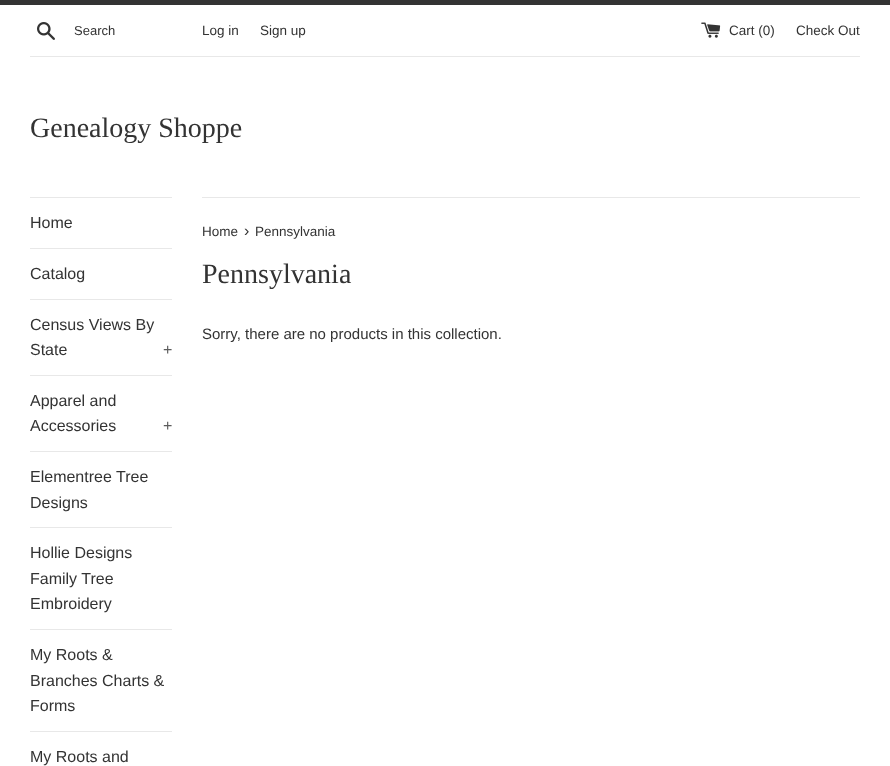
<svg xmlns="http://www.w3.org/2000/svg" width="890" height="766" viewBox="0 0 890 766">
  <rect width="100%" height="100%" fill="#fff"/>
  <path d="M0 0h890v5H0z" fill="#333"/>
  <image x="37" y="22" width="18" height="18" href="img/1.png"/>
  <image x="701" y="22" width="20" height="16" href="img/2.png"/>
  <path d="M30 56h830v1H30z" fill="#e8e8e8"/>
  <path d="M30 197h142v1H30z" fill="#e8e8e8"/>
  <path d="M30 248h142v1H30z" fill="#e8e8e8"/>
  <path d="M30 299h142v1H30z" fill="#e8e8e8"/>
  <path d="M30 375h142v1H30z" fill="#e8e8e8"/>
  <path d="M30 451h142v1H30z" fill="#e8e8e8"/>
  <path d="M30 527h142v1H30z" fill="#e8e8e8"/>
  <path d="M30 629h142v1H30z" fill="#e8e8e8"/>
  <path d="M30 731h142v1H30z" fill="#e8e8e8"/>
  <path d="M202 197h658v1H202z" fill="#e8e8e8"/>
  <text x="74" y="35" font-family="Liberation Sans" font-size="13" fill="#333">Search</text>
  <g font-family="Liberation Sans" font-size="13.5" fill="#333">
    <text x="202" y="35">Log in</text>
    <text x="260" y="35">Sign up</text>
    <text x="729" y="35">Cart (0)</text>
    <text x="796" y="35">Check Out</text>
  </g>
  <text x="30" y="137" font-family="Liberation Serif" font-size="28" fill="#333">Genealogy Shoppe</text>
  <g font-family="Liberation Sans" font-size="16" fill="#333">
    <text x="30" y="228">Home</text>
    <text x="30" y="279">Catalog</text>
    <text x="30" y="330">Census Views By</text>
    <text x="30" y="355">State</text>
  </g>
  <text x="163" y="355" font-family="Liberation Sans" font-size="16" fill="#5c5c5c">+</text>
  <g font-family="Liberation Sans" font-size="16" fill="#333">
    <text x="30" y="406">Apparel and</text>
    <text x="30" y="431">Accessories</text>
  </g>
  <text x="163" y="431" font-family="Liberation Sans" font-size="16" fill="#5c5c5c">+</text>
  <g font-family="Liberation Sans" font-size="16" fill="#333">
    <text x="30" y="482">Elementree Tree</text>
    <text x="30" y="508">Designs</text>
    <text x="30" y="558">Hollie Designs</text>
    <text x="30" y="584">Family Tree</text>
    <text x="30" y="609">Embroidery</text>
    <text x="30" y="660">My Roots &amp;</text>
    <text x="30" y="686">Branches Charts &amp;</text>
    <text x="30" y="711">Forms</text>
    <text x="30" y="762">My Roots and</text>
  </g>
  <text x="202" y="236" font-family="Liberation Sans" font-size="13.5" fill="#333">Home</text>
  <text x="244" y="236" font-family="Liberation Sans" font-size="16" fill="#333">›</text>
  <text x="255" y="236" font-family="Liberation Sans" font-size="13.5" fill="#333">Pennsylvania</text>
  <text x="202" y="283" font-family="Liberation Serif" font-size="28" fill="#333">Pennsylvania</text>
  <text x="202" y="339" font-family="Liberation Sans" font-size="15" fill="#333">Sorry, there are no products in this collection.</text>
</svg>
